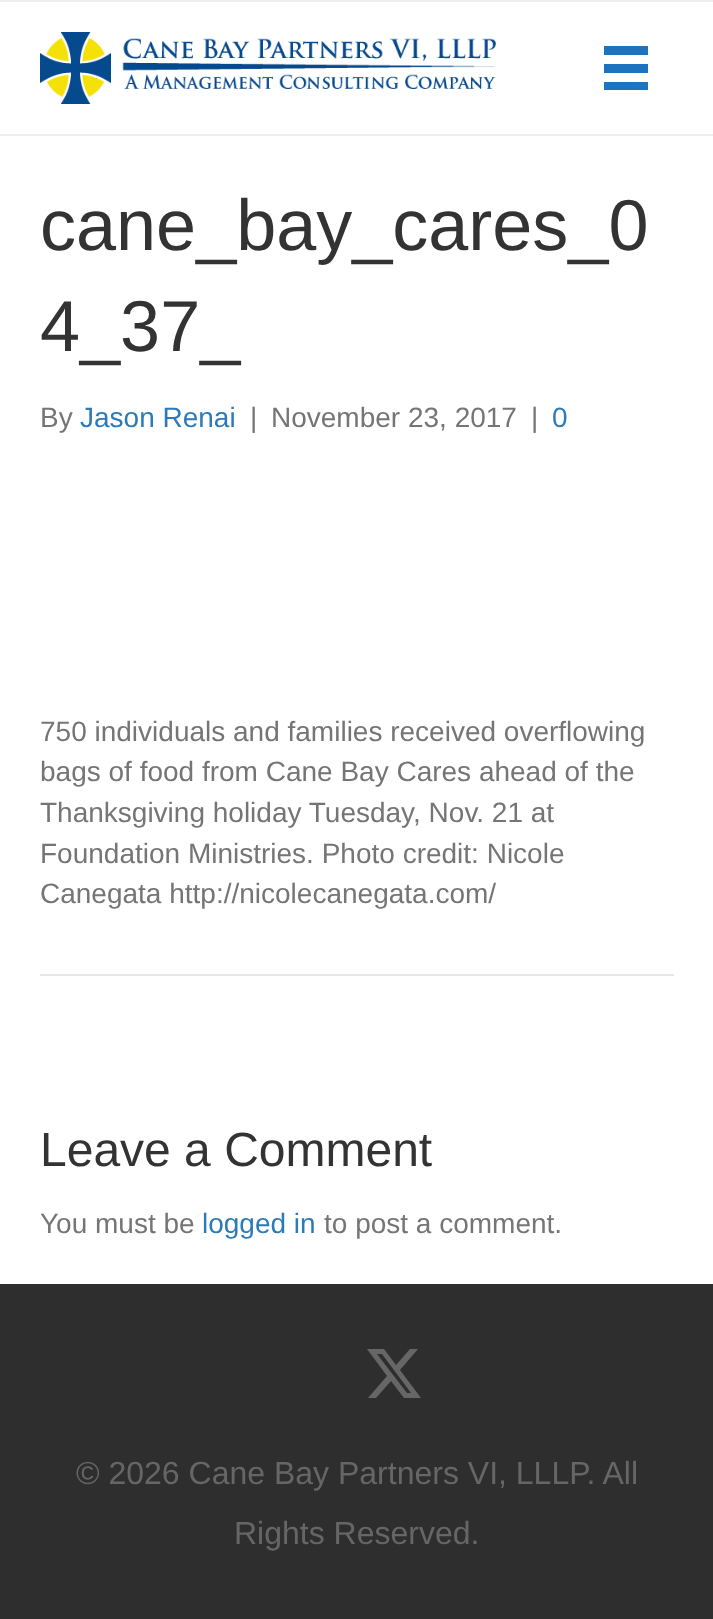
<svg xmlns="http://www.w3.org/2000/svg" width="713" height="1619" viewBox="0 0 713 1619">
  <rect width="100%" height="100%" fill="#fff"/>
  <path d="M0 0h713v2H0z" fill="#efefef"/>
  <path d="M0 134h713v2H0z" fill="#efefef"/>
  <image x="40" y="32" width="456" height="72" href="img/1.png"/>
  <path d="M604 46h44v9H604z" fill="#1e73be"/>
  <path d="M604 64h44v9H604z" fill="#1e73be"/>
  <path d="M604 82h44v8H604z" fill="#1e73be"/>
  <path d="M40 974h634v2H40z" fill="#e6e6e6"/>
  <path d="M0 1284h713v335H0z" fill="#2e2e2e"/>
  <path d="M410 1349H418L400 1370L421 1398H404L391 1381L376 1398H368L387 1376L367 1349H384L396 1365ZM407 1393H411L382 1354H377Z" fill="#666"/>
  <g font-family="Liberation Sans" font-size="72" fill="#333">
    <text x="40" y="250">cane_bay_cares_0</text>
    <text x="40" y="351">4_37_</text>
  </g>
  <text x="40" y="427" font-family="Liberation Sans" font-size="28" fill="#757575">By</text>
  <text x="80" y="427" font-family="Liberation Sans" font-size="28" fill="#2b7bb9">Jason Renai</text>
  <g font-family="Liberation Sans" font-size="28" fill="#757575">
    <text x="250" y="427">|</text>
    <text x="271" y="427">November 23, 2017</text>
    <text x="531" y="427">|</text>
  </g>
  <text x="552" y="427" font-family="Liberation Sans" font-size="28" fill="#2b7bb9">0</text>
  <g font-family="Liberation Sans" font-size="28" fill="#757575">
    <text x="40" y="741">750 individuals and families received overflowing</text>
    <text x="40" y="781">bags of food from Cane Bay Cares ahead of the</text>
    <text x="40" y="822">Thanksgiving holiday Tuesday, Nov. 21 at</text>
    <text x="40" y="863">Foundation Ministries. Photo credit: Nicole</text>
    <text x="40" y="903">Canegata http://nicolecanegata.com/</text>
  </g>
  <text x="40" y="1166" font-family="Liberation Sans" font-size="48" fill="#333">Leave a Comment</text>
  <text x="40" y="1233" font-family="Liberation Sans" font-size="28" fill="#757575">You must be</text>
  <text x="202" y="1233" font-family="Liberation Sans" font-size="28" fill="#2b7bb9">logged in</text>
  <text x="324" y="1233" font-family="Liberation Sans" font-size="28" fill="#757575">to post a comment.</text>
  <g font-family="Arimo" font-size="32" fill="#666">
    <text x="76" y="1484">© 2026 Cane Bay Partners VI, LLLP. All</text>
    <text x="234" y="1544">Rights Reserved.</text>
  </g>
</svg>
